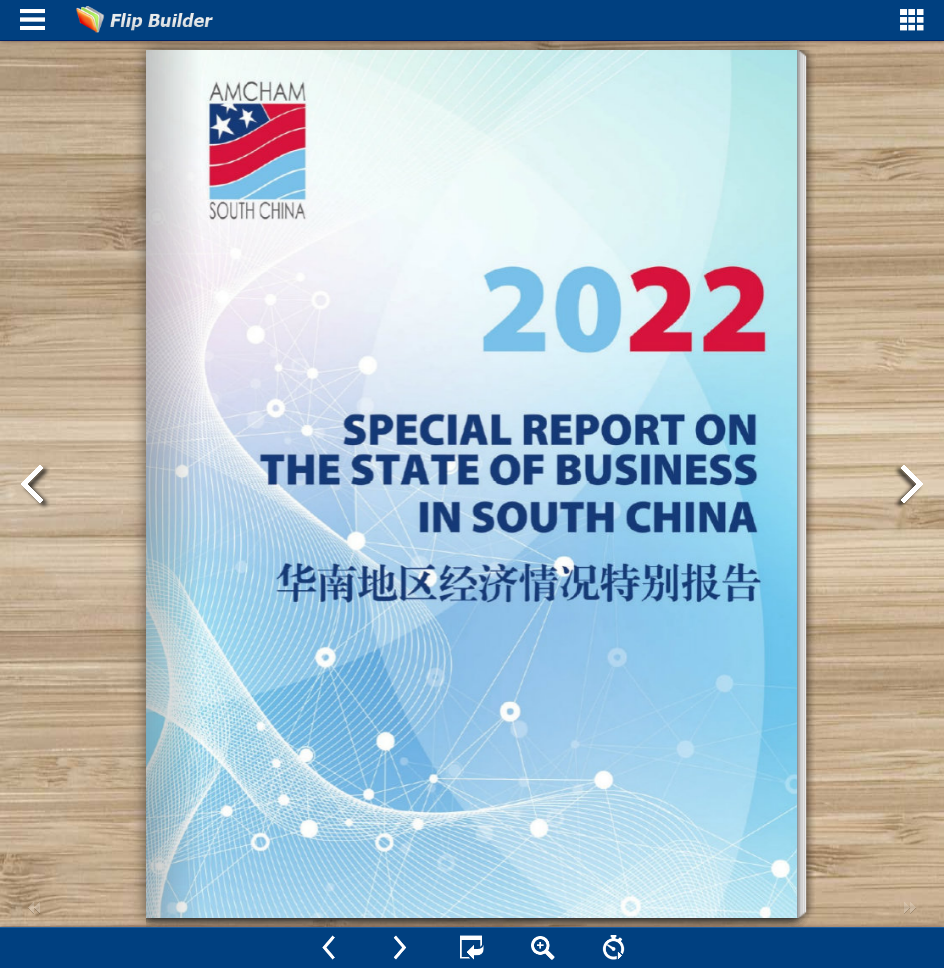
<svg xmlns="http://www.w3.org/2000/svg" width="944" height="968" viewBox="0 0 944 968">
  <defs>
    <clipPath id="clip1"><path d="M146 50h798v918H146z"/></clipPath>
  </defs>
  <rect width="100%" height="100%" fill="#fff"/>
  <image x="0" y="41" width="944" height="886" href="img/6.png"/>
  <path d="M0 0h944v41H0z" fill="#28000080" filter="blur(2.5px)"/>
  <path d="M146 50h652v868H146z" fill="#282828b3" filter="blur(7.5px)"/>
  <g clip-path="url(#clip1)">
    <path d="M146 50h652v868H146z" fill="#28282880" filter="blur(5px)"/>
    <path d="M146 50h652v868H146z" fill="#28282880" filter="blur(5px)"/>
    <path d="M146 50h652v868H146z" fill="#28282880" filter="blur(5px)"/>
    <path d="M146 50h652v868H146z" fill="#28282880" filter="blur(5px)"/>
    <path d="M146 50h652v868H146z" fill="#28282880" filter="blur(5px)"/>
  </g>
  <path d="M0 0h944v40H0z" fill="#004080"/>
  <path d="M0 40h944v1H0z" fill="#002262"/>
  <image x="20" y="9" width="25" height="21" href="img/1.png"/>
  <image x="76" y="6" width="137" height="27" href="img/2.png"/>
  <image x="900" y="9" width="24" height="22" href="img/3.png"/>
  <image x="146" y="50" width="652" height="868" href="img/4.png"/>
  <image x="797" y="50" width="18" height="868" href="img/5.png"/>
  <image x="21" y="465" width="29" height="44" href="img/7.png"/>
  <image x="894" y="465" width="29" height="44" href="img/8.png"/>
  <image x="28" y="902" width="12" height="12" href="img/9.png"/>
  <image x="904" y="902" width="12" height="12" href="img/10.png"/>
  <path d="M0 927h944v41H0z" fill="#28000080" filter="blur(2.5px)"/>
  <path d="M0 928h944v40H0z" fill="#004080"/>
  <path d="M0 927h944v1H0z" fill="#1e5e9e"/>
  <image x="322" y="935" width="13" height="25" href="img/11.png"/>
  <image x="393" y="935" width="14" height="25" href="img/12.png"/>
  <image x="460" y="935" width="24" height="25" href="img/13.png"/>
  <image x="531" y="936" width="24" height="24" href="img/14.png"/>
  <image x="602" y="935" width="23" height="25" href="img/15.png"/>
</svg>
